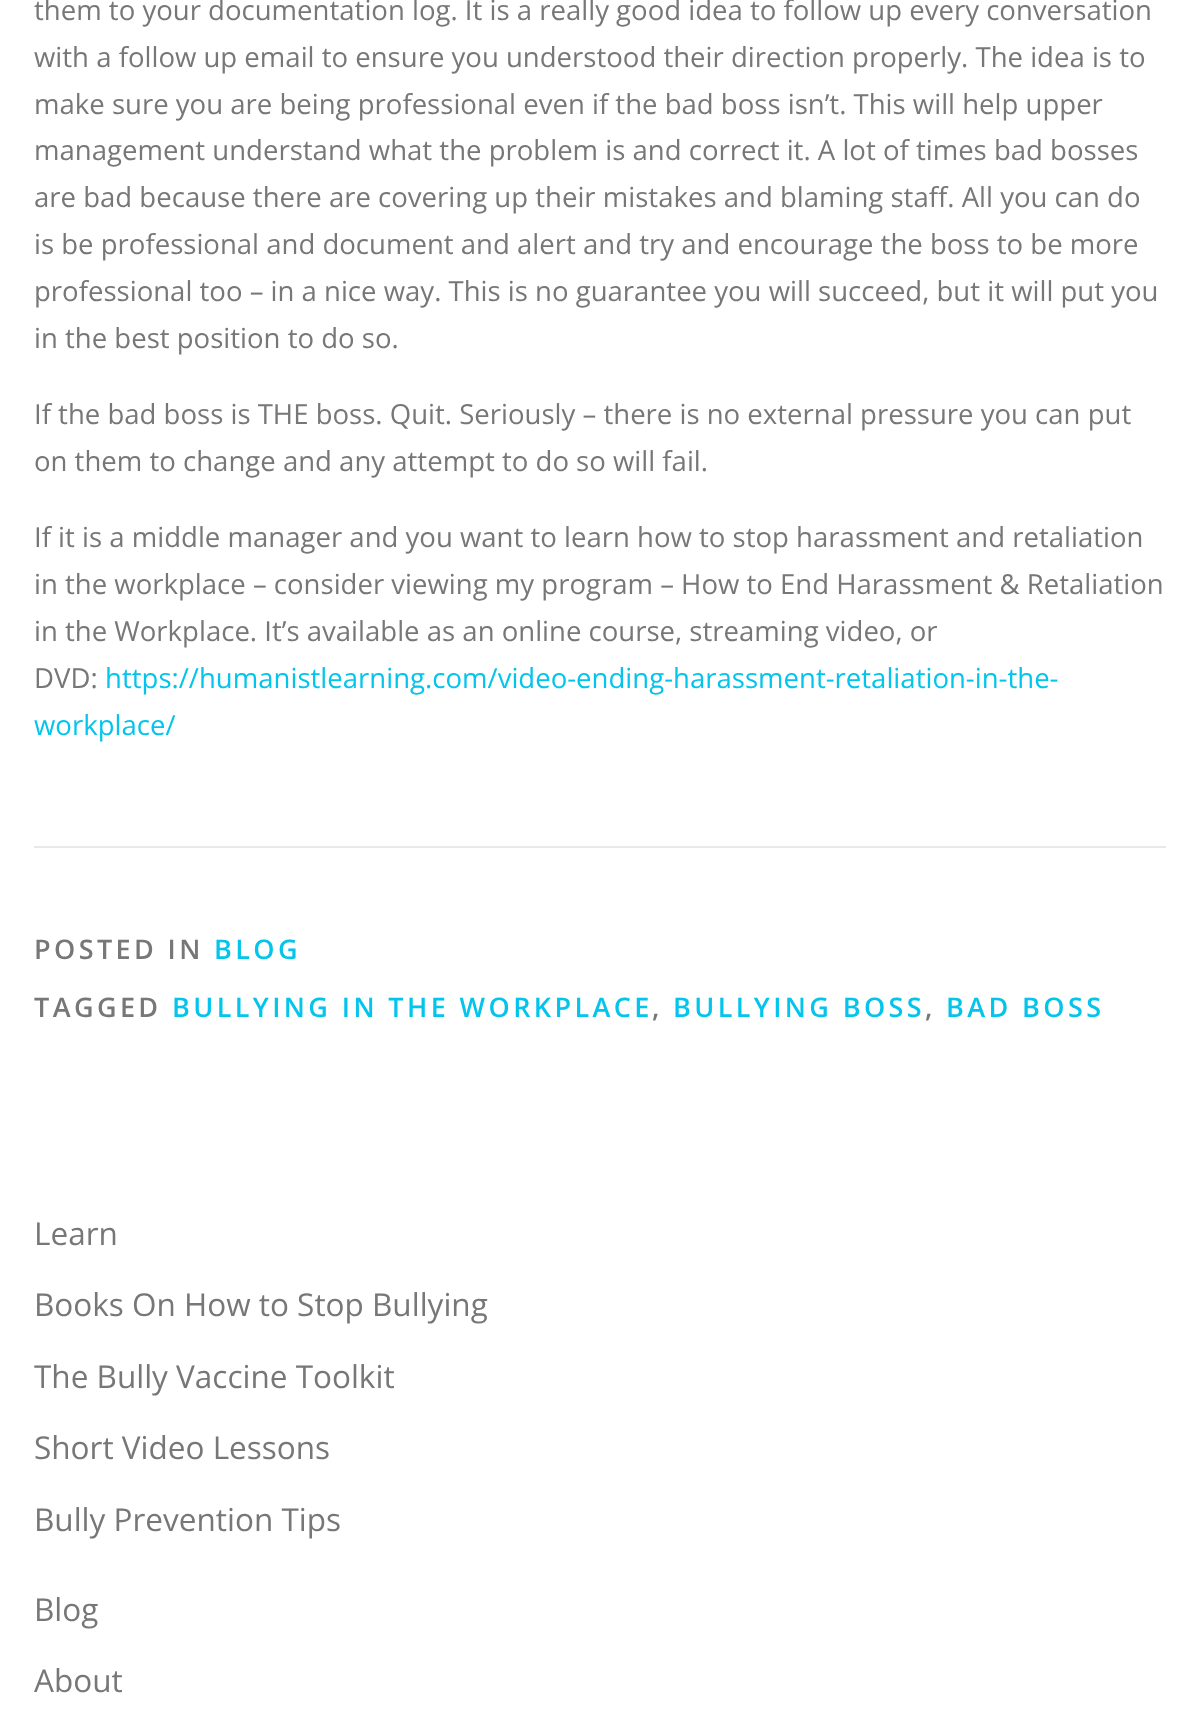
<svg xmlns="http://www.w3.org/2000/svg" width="1198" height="1724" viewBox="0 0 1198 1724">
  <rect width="100%" height="100%" fill="#fff"/>
  <path d="M34 846h1132v2H34z" fill="#e9e9e9"/>
  <g font-family="Open Sans" font-size="27.55" fill="#777">
    <text x="34" y="20">them to your documentation log. It is a really good idea to follow up every conversation</text>
    <text x="34" y="67">with a follow up email to ensure you understood their direction properly. The idea is to</text>
    <text x="34" y="114">make sure you are being professional even if the bad boss isn’t. This will help upper</text>
    <text x="34" y="160">management understand what the problem is and correct it. A lot of times bad bosses</text>
    <text x="34" y="207">are bad because there are covering up their mistakes and blaming staff. All you can do</text>
    <text x="34" y="254">is be professional and document and alert and try and encourage the boss to be more</text>
    <text x="34" y="301">professional too – in a nice way. This is no guarantee you will succeed, but it will put you</text>
    <text x="34" y="348">in the best position to do so.</text>
    <text x="34" y="424">If the bad boss is THE boss. Quit. Seriously – there is no external pressure you can put</text>
    <text x="34" y="471">on them to change and any attempt to do so will fail.</text>
    <text x="34" y="547">If it is a middle manager and you want to learn how to stop harassment and retaliation</text>
    <text x="34" y="594">in the workplace – consider viewing my program – How to End Harassment &amp; Retaliation</text>
    <text x="34" y="641">in the Workplace. It’s available as an online course, streaming video, or</text>
    <text x="34" y="688">DVD:</text>
  </g>
  <g font-family="Open Sans" font-size="27.55" fill="#03c4eb">
    <text x="105" y="688">https://humanistlearning.com/video-ending-harassment-retaliation-in-the-</text>
    <text x="34" y="735">workplace/</text>
  </g>
  <text x="34" y="959" font-family="Open Sans" font-size="27" font-weight="600" letter-spacing="3.4" fill="#777">POSTED IN</text>
  <text x="214" y="959" font-family="Open Sans" font-size="27" font-weight="600" letter-spacing="3.4" fill="#03c4eb">BLOG</text>
  <text x="34" y="1017" font-family="Open Sans" font-size="27" font-weight="600" letter-spacing="3.4" fill="#777">TAGGED</text>
  <text x="172" y="1017" font-family="Open Sans" font-size="27" font-weight="600" letter-spacing="3.4" fill="#03c4eb">BULLYING IN THE WORKPLACE</text>
  <text x="652" y="1017" font-family="Open Sans" font-size="27" font-weight="600" letter-spacing="3.4" fill="#777">,</text>
  <text x="673" y="1017" font-family="Open Sans" font-size="27" font-weight="600" letter-spacing="3.4" fill="#03c4eb">BULLYING BOSS</text>
  <text x="925" y="1017" font-family="Open Sans" font-size="27" font-weight="600" letter-spacing="3.4" fill="#777">,</text>
  <text x="946" y="1017" font-family="Open Sans" font-size="27" font-weight="600" letter-spacing="3.4" fill="#03c4eb">BAD BOSS</text>
  <g font-family="Open Sans" font-size="31.5" fill="#777">
    <text x="34" y="1245">Learn</text>
    <text x="34" y="1316">Books On How to Stop Bullying</text>
    <text x="34" y="1388">The Bully Vaccine Toolkit</text>
    <text x="34" y="1459">Short Video Lessons</text>
    <text x="34" y="1531">Bully Prevention Tips</text>
    <text x="34" y="1621">Blog</text>
    <text x="34" y="1692">About</text>
  </g>
</svg>
